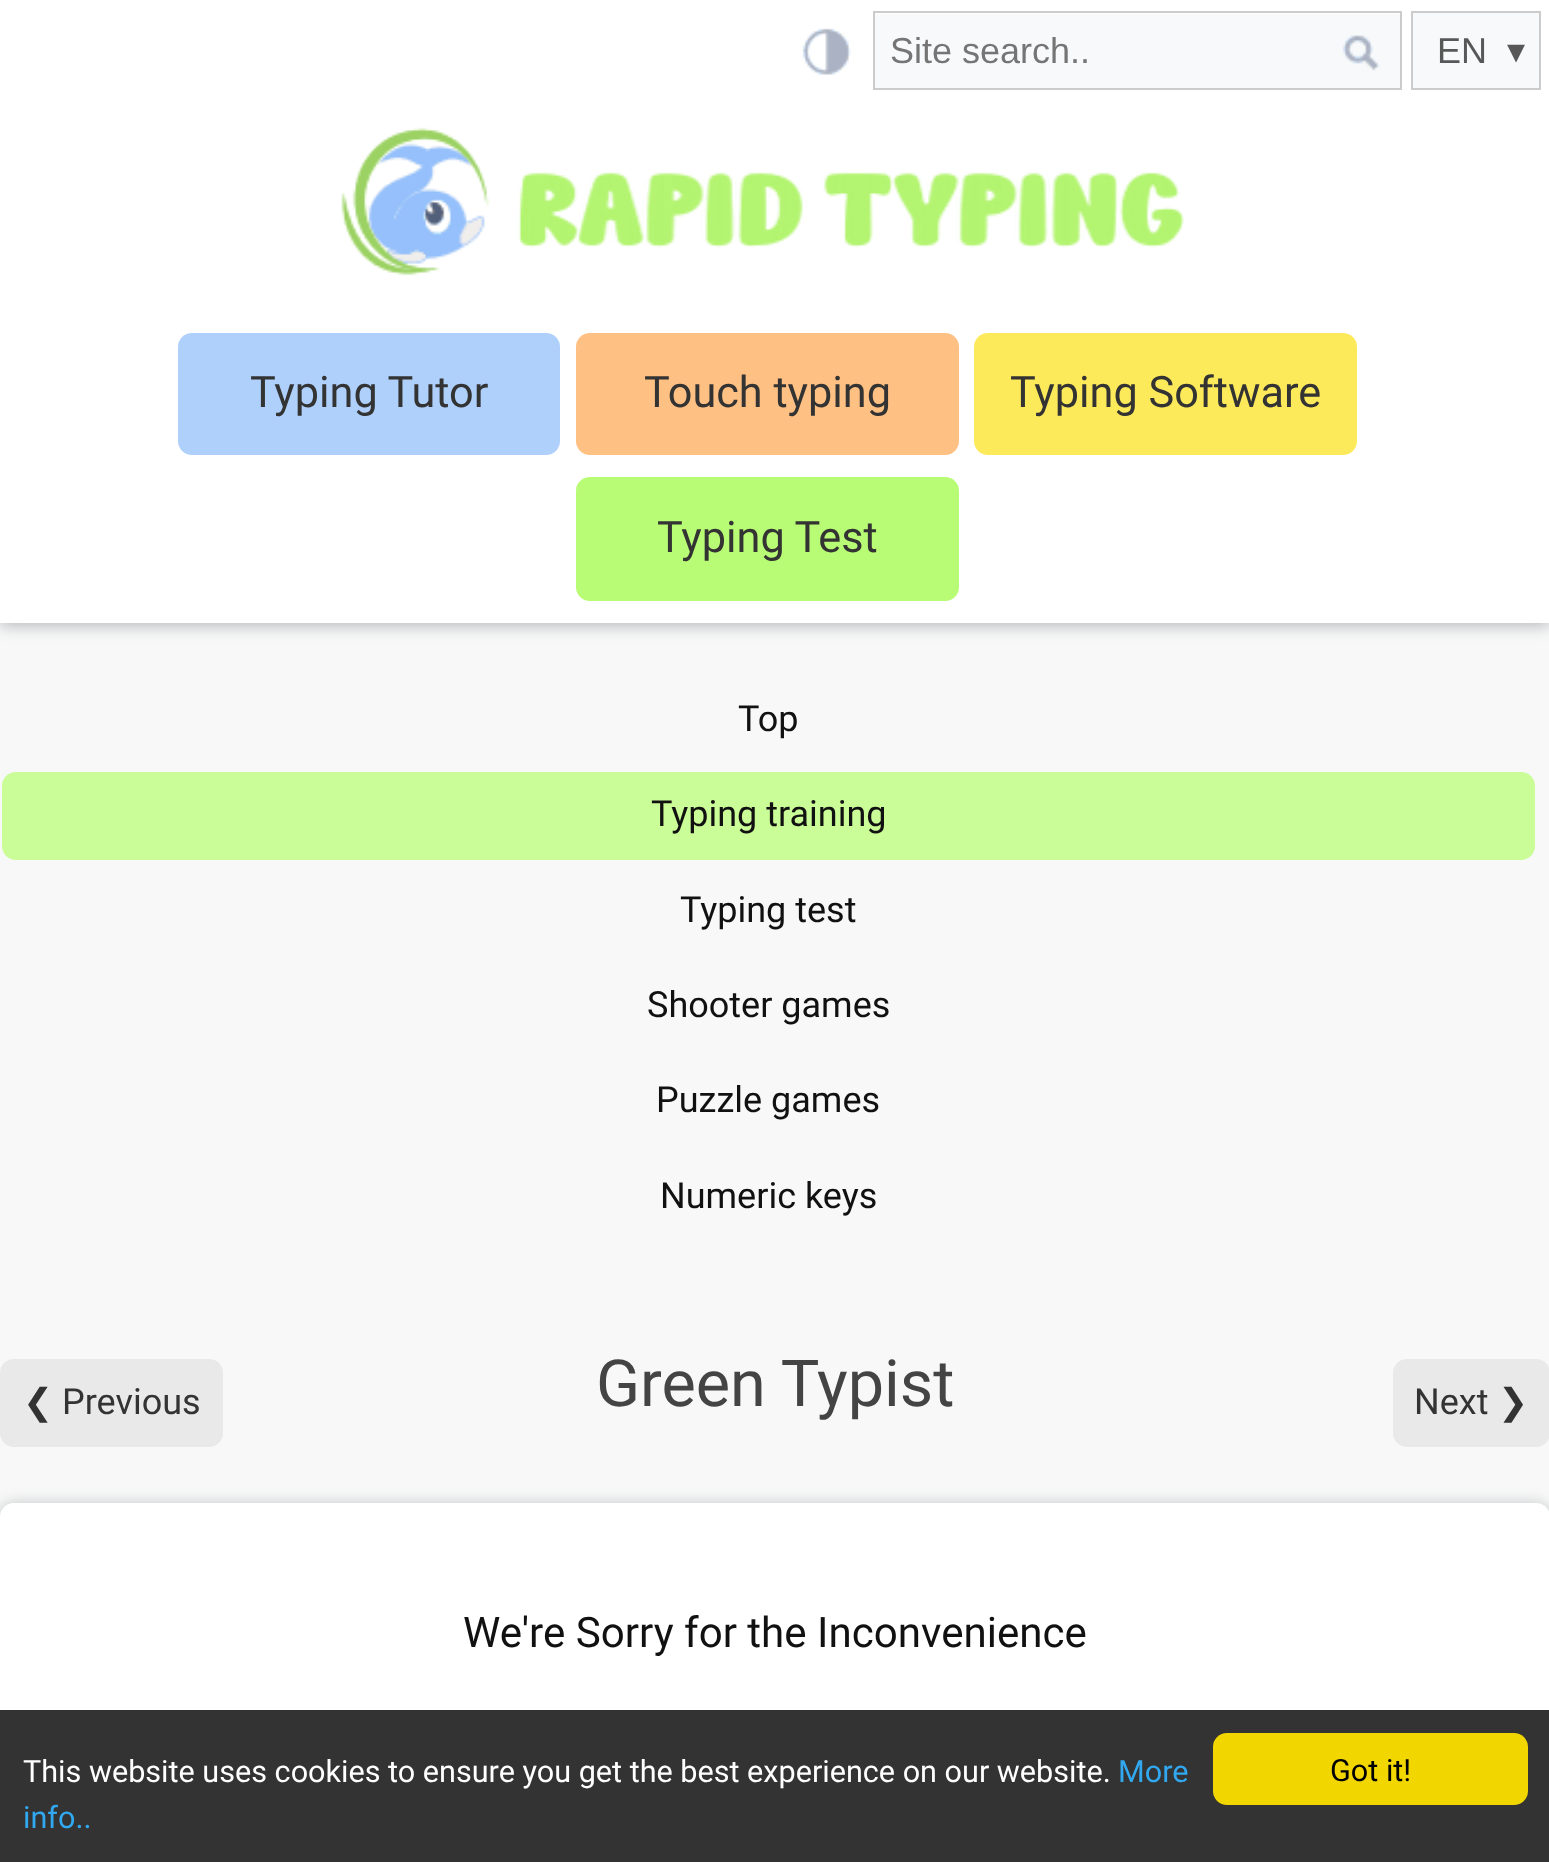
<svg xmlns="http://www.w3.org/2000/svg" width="1549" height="1862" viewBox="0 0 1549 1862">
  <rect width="100%" height="100%" fill="#f8f8f8"/>
  <path d="M0 2h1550v624H0z" fill="#39494c59" filter="blur(8px)"/>
  <path d="M0 0h1549v623H0z" fill="#fff"/>
  <image x="802" y="28" width="49" height="47" href="img/1.png"/>
  <path d="M875 14h525v74H875z" fill="#f8f9fa"/>
  <path d="M873 11h529v2H873z" fill="#ccc"/>
  <path d="M873 88h450v2H873z" fill="#ccc"/>
  <path d="M873 11h2v79H873z" fill="#ccc"/>
  <image x="1342" y="34" width="38" height="37" href="img/2.png"/>
  <path d="M1400 11h2v79H1400z" fill="#ccc"/>
  <path d="M1323 88h79v2H1323z" fill="#ccc"/>
  <path d="M1412 12h128v77H1412z" fill="#f8f9fa" stroke="#ccc" stroke-width="2"/>
  <image x="341" y="127" width="843" height="149" href="img/3.png"/>
  <rect x="178" y="333" width="382" height="122" rx="14" fill="#aed0fb"/>
  <rect x="576" y="333" width="383" height="122" rx="14" fill="#ffc083"/>
  <rect x="974" y="333" width="383" height="122" rx="14" fill="#fdea5a"/>
  <rect x="576" y="477" width="383" height="124" rx="14" fill="#b8fb74"/>
  <rect x="2" y="772" width="1533" height="88" rx="14" fill="#cafc97"/>
  <rect y="1359" width="223" height="88" rx="14" fill="#e9e9e9"/>
  <rect x="1393" y="1359" width="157" height="88" rx="14" fill="#e9e9e9"/>
  <rect y="1505" width="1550" height="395" rx="14" fill="#39494c59" filter="blur(8px)"/>
  <rect y="1503" width="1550" height="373" rx="14" fill="#fff"/>
  <path d="M0 1710h1549v152H0z" fill="#333"/>
  <rect x="1213" y="1733" width="315" height="72" rx="14" fill="#f1d600"/>
  <text x="890" y="63" font-family="Liberation Sans" font-size="36" fill="#757575">Site search..</text>
  <text x="1437" y="63" font-family="Liberation Sans" font-size="36" fill="#585858">EN</text>
  <text x="1507" y="63" font-family="DejaVu Sans" font-size="36" fill="#585858">▾</text>
  <g font-family="Roboto" font-size="43.25" fill="#333">
    <text x="250" y="407">Typing Tutor</text>
    <text x="644" y="407">Touch typing</text>
    <text x="1010" y="407">Typing Software</text>
    <text x="657" y="552">Typing Test</text>
  </g>
  <g font-family="Roboto" font-size="36" fill="#111">
    <text x="738" y="731">Top</text>
    <text x="651" y="826">Typing training</text>
    <text x="680" y="922">Typing test</text>
    <text x="647" y="1017">Shooter games</text>
    <text x="656" y="1112">Puzzle games</text>
    <text x="660" y="1208">Numeric keys</text>
  </g>
  <text x="596" y="1406" font-family="Roboto" font-size="64.75" fill="#444">Green Typist</text>
  <text x="23" y="1414" font-family="DejaVu Sans" font-size="36" fill="#333">❮</text>
  <g font-family="Roboto" font-size="36" fill="#333">
    <text x="62" y="1414">Previous</text>
    <text x="1414" y="1414">Next</text>
  </g>
  <text x="1498" y="1414" font-family="DejaVu Sans" font-size="36" fill="#333">❯</text>
  <text x="463" y="1647" font-family="Roboto" font-size="42.1" fill="#111">We're Sorry for the Inconvenience</text>
  <text x="23" y="1782" font-family="Roboto" font-size="30.6" fill="#fff">This website uses cookies to ensure you get the best experience on our website.</text>
  <g font-family="Roboto" font-size="30.6" fill="#31a8f0">
    <text x="1118" y="1782">More</text>
    <text x="23" y="1828">info..</text>
  </g>
  <text x="1330" y="1781" font-family="Roboto" font-size="30.6" fill="#000">Got it!</text>
</svg>
